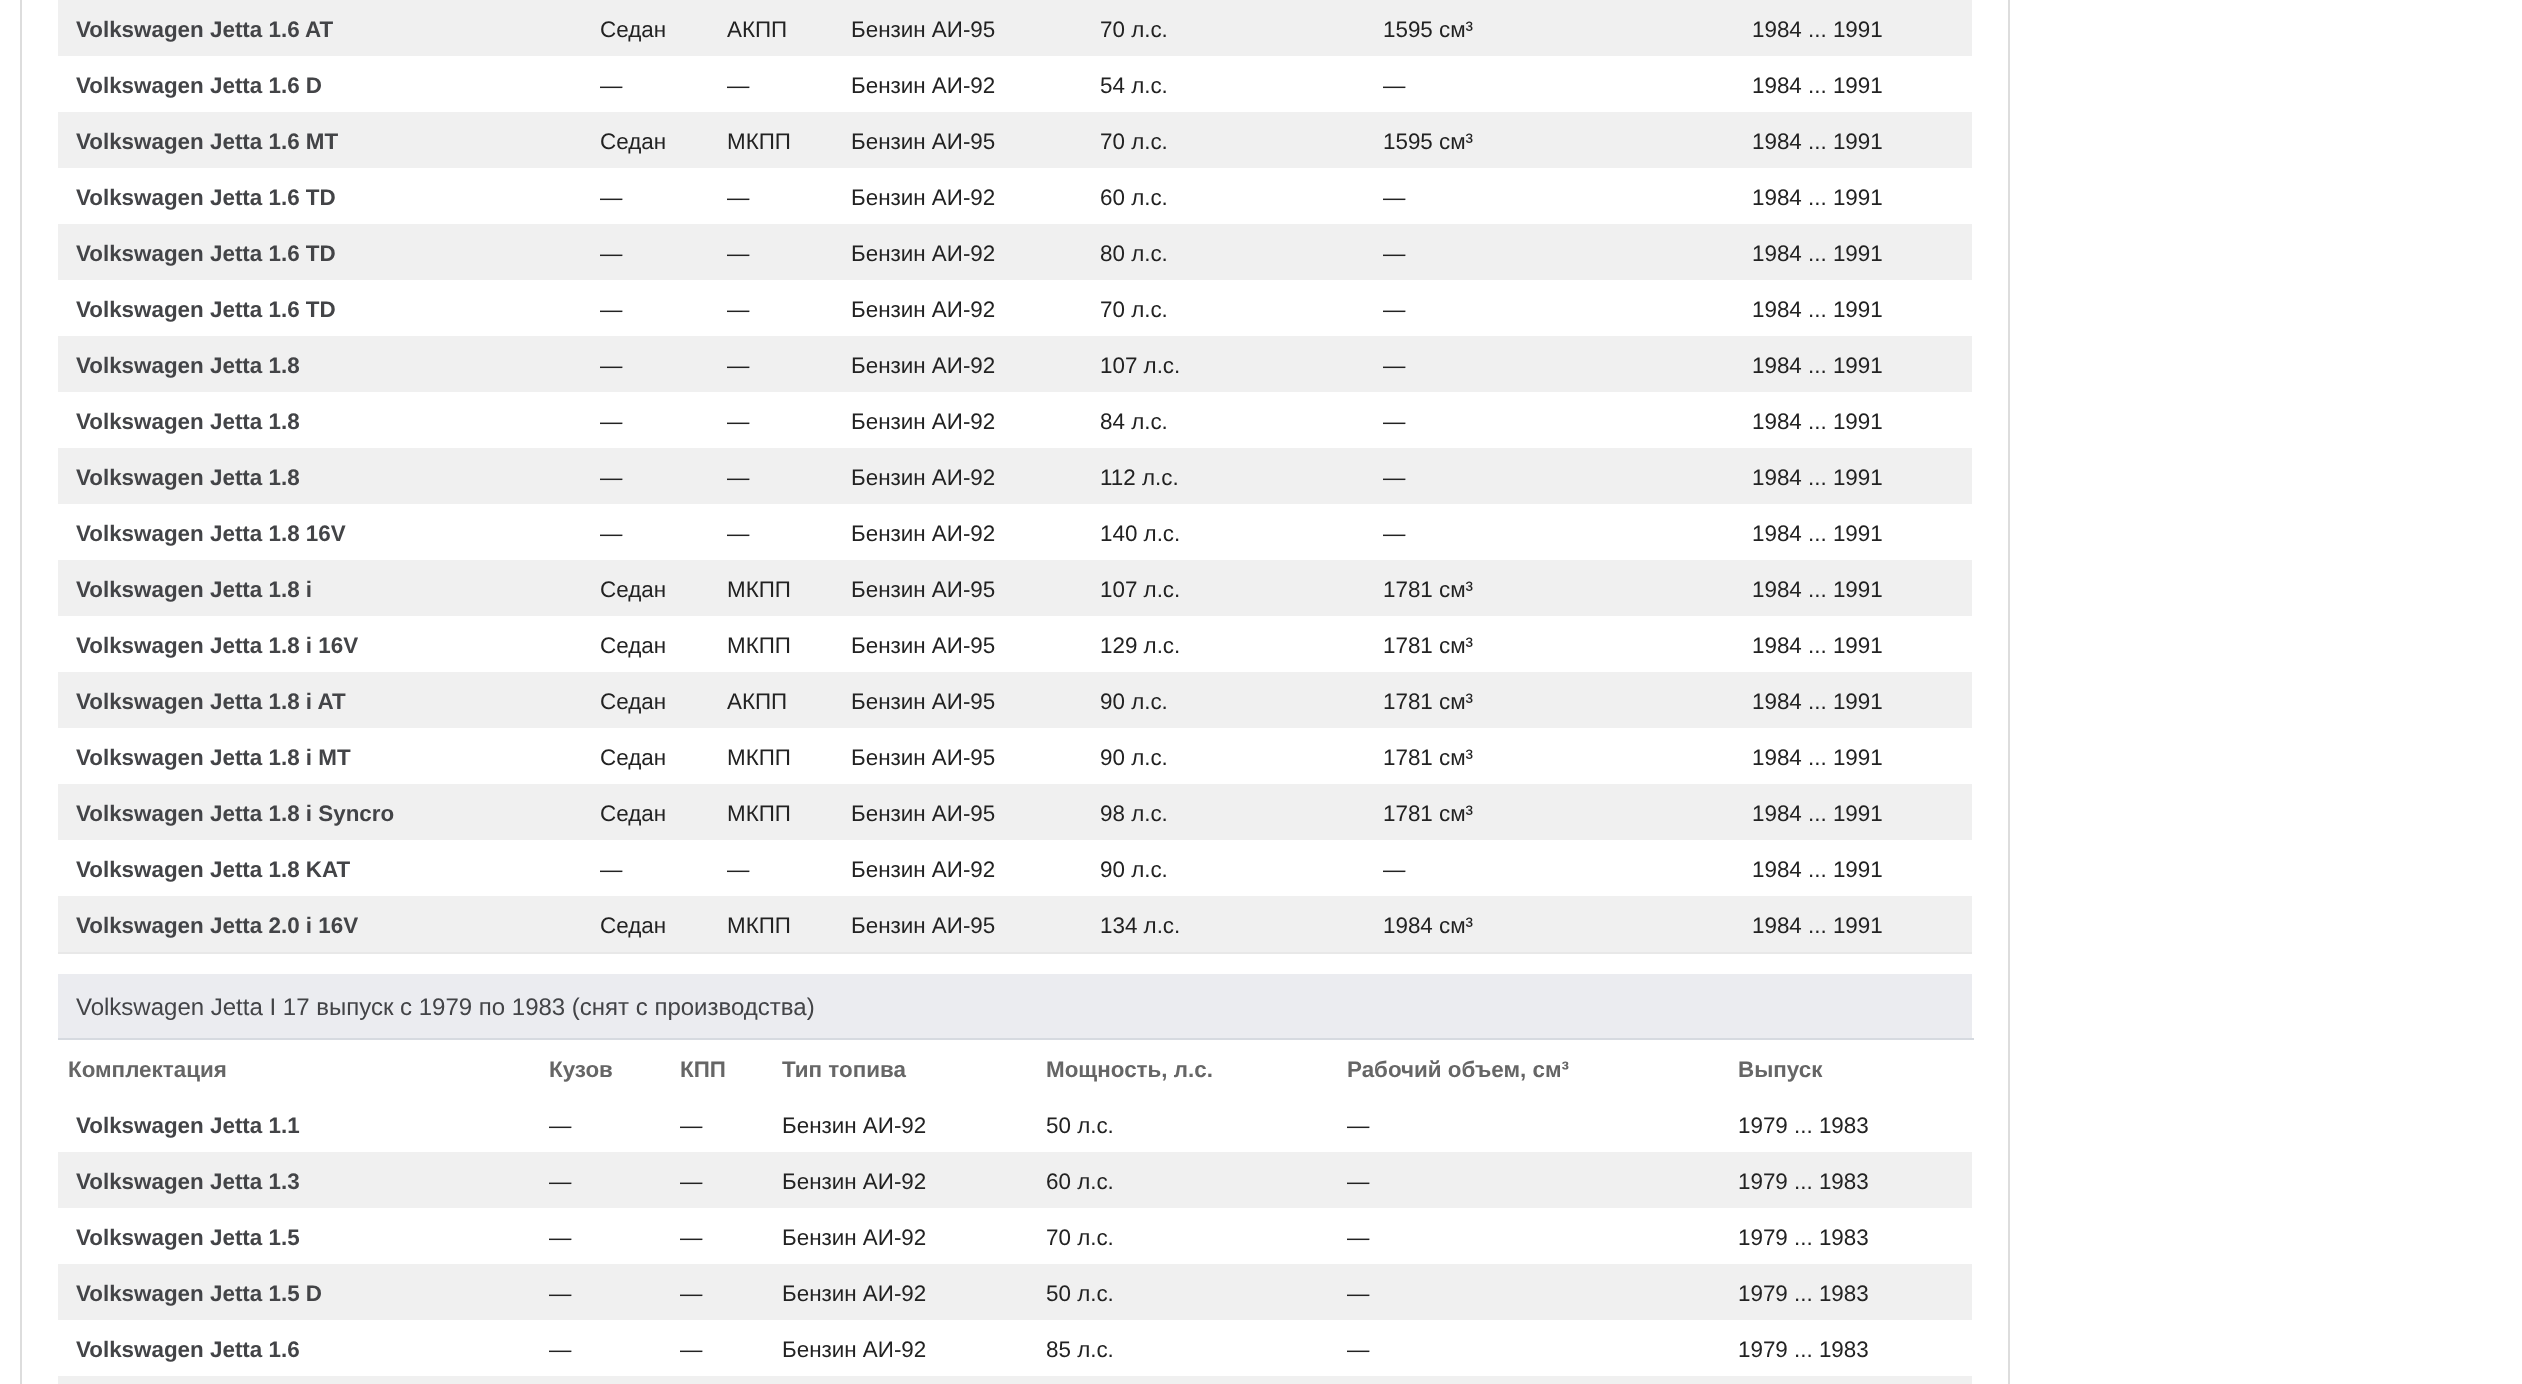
<svg xmlns="http://www.w3.org/2000/svg" width="2522" height="1384" viewBox="0 0 2522 1384">
  <rect width="100%" height="100%" fill="#fff"/>
  <path d="M21 -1h1988v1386H21z" fill="none" stroke="#ddd" stroke-width="2"/>
  <path d="M58 952h1914v2H58z" fill="#e8e8e8"/>
  <path d="M58 0h1914v56H58z" fill="#f0f0f0"/>
  <path d="M58 112h1914v56H58z" fill="#f0f0f0"/>
  <path d="M58 224h1914v56H58z" fill="#f0f0f0"/>
  <path d="M58 336h1914v56H58z" fill="#f0f0f0"/>
  <path d="M58 448h1914v56H58z" fill="#f0f0f0"/>
  <path d="M58 560h1914v56H58z" fill="#f0f0f0"/>
  <path d="M58 672h1914v56H58z" fill="#f0f0f0"/>
  <path d="M58 784h1914v56H58z" fill="#f0f0f0"/>
  <path d="M58 896h1914v56H58z" fill="#f0f0f0"/>
  <path d="M58 974h1914v64H58z" fill="#ebecf0"/>
  <path d="M58 1038h1916v2H58z" fill="#d6dae0"/>
  <path d="M58 1152h1914v56H58z" fill="#f0f0f0"/>
  <path d="M58 1264h1914v56H58z" fill="#f0f0f0"/>
  <path d="M58 1376h1914v8H58z" fill="#f0f0f0"/>
  <text x="76" y="37" font-family="Liberation Sans" font-size="22.4" font-weight="bold" fill="#434447">Volkswagen Jetta 1.6 AT</text>
  <g font-family="Liberation Sans" font-size="22.4" fill="#222">
    <text x="600" y="37">Седан</text>
    <text x="727" y="37">АКПП</text>
    <text x="851" y="37">Бензин АИ-95</text>
    <text x="1100" y="37">70 л.с.</text>
    <text x="1383" y="37">1595 см³</text>
    <text x="1752" y="37">1984 ... 1991</text>
  </g>
  <text x="76" y="93" font-family="Liberation Sans" font-size="22.4" font-weight="bold" fill="#434447">Volkswagen Jetta 1.6 D</text>
  <g font-family="Liberation Sans" font-size="22.4" fill="#222">
    <text x="600" y="93">—</text>
    <text x="727" y="93">—</text>
    <text x="851" y="93">Бензин АИ-92</text>
    <text x="1100" y="93">54 л.с.</text>
    <text x="1383" y="93">—</text>
    <text x="1752" y="93">1984 ... 1991</text>
  </g>
  <text x="76" y="149" font-family="Liberation Sans" font-size="22.4" font-weight="bold" fill="#434447">Volkswagen Jetta 1.6 MT</text>
  <g font-family="Liberation Sans" font-size="22.4" fill="#222">
    <text x="600" y="149">Седан</text>
    <text x="727" y="149">МКПП</text>
    <text x="851" y="149">Бензин АИ-95</text>
    <text x="1100" y="149">70 л.с.</text>
    <text x="1383" y="149">1595 см³</text>
    <text x="1752" y="149">1984 ... 1991</text>
  </g>
  <text x="76" y="205" font-family="Liberation Sans" font-size="22.4" font-weight="bold" fill="#434447">Volkswagen Jetta 1.6 TD</text>
  <g font-family="Liberation Sans" font-size="22.4" fill="#222">
    <text x="600" y="205">—</text>
    <text x="727" y="205">—</text>
    <text x="851" y="205">Бензин АИ-92</text>
    <text x="1100" y="205">60 л.с.</text>
    <text x="1383" y="205">—</text>
    <text x="1752" y="205">1984 ... 1991</text>
  </g>
  <text x="76" y="261" font-family="Liberation Sans" font-size="22.4" font-weight="bold" fill="#434447">Volkswagen Jetta 1.6 TD</text>
  <g font-family="Liberation Sans" font-size="22.4" fill="#222">
    <text x="600" y="261">—</text>
    <text x="727" y="261">—</text>
    <text x="851" y="261">Бензин АИ-92</text>
    <text x="1100" y="261">80 л.с.</text>
    <text x="1383" y="261">—</text>
    <text x="1752" y="261">1984 ... 1991</text>
  </g>
  <text x="76" y="317" font-family="Liberation Sans" font-size="22.4" font-weight="bold" fill="#434447">Volkswagen Jetta 1.6 TD</text>
  <g font-family="Liberation Sans" font-size="22.4" fill="#222">
    <text x="600" y="317">—</text>
    <text x="727" y="317">—</text>
    <text x="851" y="317">Бензин АИ-92</text>
    <text x="1100" y="317">70 л.с.</text>
    <text x="1383" y="317">—</text>
    <text x="1752" y="317">1984 ... 1991</text>
  </g>
  <text x="76" y="373" font-family="Liberation Sans" font-size="22.4" font-weight="bold" fill="#434447">Volkswagen Jetta 1.8</text>
  <g font-family="Liberation Sans" font-size="22.4" fill="#222">
    <text x="600" y="373">—</text>
    <text x="727" y="373">—</text>
    <text x="851" y="373">Бензин АИ-92</text>
    <text x="1100" y="373">107 л.с.</text>
    <text x="1383" y="373">—</text>
    <text x="1752" y="373">1984 ... 1991</text>
  </g>
  <text x="76" y="429" font-family="Liberation Sans" font-size="22.4" font-weight="bold" fill="#434447">Volkswagen Jetta 1.8</text>
  <g font-family="Liberation Sans" font-size="22.4" fill="#222">
    <text x="600" y="429">—</text>
    <text x="727" y="429">—</text>
    <text x="851" y="429">Бензин АИ-92</text>
    <text x="1100" y="429">84 л.с.</text>
    <text x="1383" y="429">—</text>
    <text x="1752" y="429">1984 ... 1991</text>
  </g>
  <text x="76" y="485" font-family="Liberation Sans" font-size="22.4" font-weight="bold" fill="#434447">Volkswagen Jetta 1.8</text>
  <g font-family="Liberation Sans" font-size="22.4" fill="#222">
    <text x="600" y="485">—</text>
    <text x="727" y="485">—</text>
    <text x="851" y="485">Бензин АИ-92</text>
    <text x="1100" y="485">112 л.с.</text>
    <text x="1383" y="485">—</text>
    <text x="1752" y="485">1984 ... 1991</text>
  </g>
  <text x="76" y="541" font-family="Liberation Sans" font-size="22.4" font-weight="bold" fill="#434447">Volkswagen Jetta 1.8 16V</text>
  <g font-family="Liberation Sans" font-size="22.4" fill="#222">
    <text x="600" y="541">—</text>
    <text x="727" y="541">—</text>
    <text x="851" y="541">Бензин АИ-92</text>
    <text x="1100" y="541">140 л.с.</text>
    <text x="1383" y="541">—</text>
    <text x="1752" y="541">1984 ... 1991</text>
  </g>
  <text x="76" y="597" font-family="Liberation Sans" font-size="22.4" font-weight="bold" fill="#434447">Volkswagen Jetta 1.8 i</text>
  <g font-family="Liberation Sans" font-size="22.4" fill="#222">
    <text x="600" y="597">Седан</text>
    <text x="727" y="597">МКПП</text>
    <text x="851" y="597">Бензин АИ-95</text>
    <text x="1100" y="597">107 л.с.</text>
    <text x="1383" y="597">1781 см³</text>
    <text x="1752" y="597">1984 ... 1991</text>
  </g>
  <text x="76" y="653" font-family="Liberation Sans" font-size="22.4" font-weight="bold" fill="#434447">Volkswagen Jetta 1.8 i 16V</text>
  <g font-family="Liberation Sans" font-size="22.4" fill="#222">
    <text x="600" y="653">Седан</text>
    <text x="727" y="653">МКПП</text>
    <text x="851" y="653">Бензин АИ-95</text>
    <text x="1100" y="653">129 л.с.</text>
    <text x="1383" y="653">1781 см³</text>
    <text x="1752" y="653">1984 ... 1991</text>
  </g>
  <text x="76" y="709" font-family="Liberation Sans" font-size="22.4" font-weight="bold" fill="#434447">Volkswagen Jetta 1.8 i AT</text>
  <g font-family="Liberation Sans" font-size="22.4" fill="#222">
    <text x="600" y="709">Седан</text>
    <text x="727" y="709">АКПП</text>
    <text x="851" y="709">Бензин АИ-95</text>
    <text x="1100" y="709">90 л.с.</text>
    <text x="1383" y="709">1781 см³</text>
    <text x="1752" y="709">1984 ... 1991</text>
  </g>
  <text x="76" y="765" font-family="Liberation Sans" font-size="22.4" font-weight="bold" fill="#434447">Volkswagen Jetta 1.8 i MT</text>
  <g font-family="Liberation Sans" font-size="22.4" fill="#222">
    <text x="600" y="765">Седан</text>
    <text x="727" y="765">МКПП</text>
    <text x="851" y="765">Бензин АИ-95</text>
    <text x="1100" y="765">90 л.с.</text>
    <text x="1383" y="765">1781 см³</text>
    <text x="1752" y="765">1984 ... 1991</text>
  </g>
  <text x="76" y="821" font-family="Liberation Sans" font-size="22.4" font-weight="bold" fill="#434447">Volkswagen Jetta 1.8 i Syncro</text>
  <g font-family="Liberation Sans" font-size="22.4" fill="#222">
    <text x="600" y="821">Седан</text>
    <text x="727" y="821">МКПП</text>
    <text x="851" y="821">Бензин АИ-95</text>
    <text x="1100" y="821">98 л.с.</text>
    <text x="1383" y="821">1781 см³</text>
    <text x="1752" y="821">1984 ... 1991</text>
  </g>
  <text x="76" y="877" font-family="Liberation Sans" font-size="22.4" font-weight="bold" fill="#434447">Volkswagen Jetta 1.8 KAT</text>
  <g font-family="Liberation Sans" font-size="22.4" fill="#222">
    <text x="600" y="877">—</text>
    <text x="727" y="877">—</text>
    <text x="851" y="877">Бензин АИ-92</text>
    <text x="1100" y="877">90 л.с.</text>
    <text x="1383" y="877">—</text>
    <text x="1752" y="877">1984 ... 1991</text>
  </g>
  <text x="76" y="933" font-family="Liberation Sans" font-size="22.4" font-weight="bold" fill="#434447">Volkswagen Jetta 2.0 i 16V</text>
  <g font-family="Liberation Sans" font-size="22.4" fill="#222">
    <text x="600" y="933">Седан</text>
    <text x="727" y="933">МКПП</text>
    <text x="851" y="933">Бензин АИ-95</text>
    <text x="1100" y="933">134 л.с.</text>
    <text x="1383" y="933">1984 см³</text>
    <text x="1752" y="933">1984 ... 1991</text>
  </g>
  <text x="76" y="1015" font-family="Liberation Sans" font-size="24" fill="#434447">Volkswagen Jetta I 17 выпуск с 1979 по 1983 (снят с производства)</text>
  <g font-family="Liberation Sans" font-size="22.4" font-weight="bold" fill="#666">
    <text x="68" y="1077">Комплектация</text>
    <text x="549" y="1077">Кузов</text>
    <text x="680" y="1077">КПП</text>
    <text x="782" y="1077">Тип топива</text>
    <text x="1046" y="1077">Мощность, л.с.</text>
    <text x="1347" y="1077">Рабочий объем, см³</text>
    <text x="1738" y="1077">Выпуск</text>
  </g>
  <text x="76" y="1133" font-family="Liberation Sans" font-size="22.4" font-weight="bold" fill="#434447">Volkswagen Jetta 1.1</text>
  <g font-family="Liberation Sans" font-size="22.4" fill="#222">
    <text x="549" y="1133">—</text>
    <text x="680" y="1133">—</text>
    <text x="782" y="1133">Бензин АИ-92</text>
    <text x="1046" y="1133">50 л.с.</text>
    <text x="1347" y="1133">—</text>
    <text x="1738" y="1133">1979 ... 1983</text>
  </g>
  <text x="76" y="1189" font-family="Liberation Sans" font-size="22.4" font-weight="bold" fill="#434447">Volkswagen Jetta 1.3</text>
  <g font-family="Liberation Sans" font-size="22.4" fill="#222">
    <text x="549" y="1189">—</text>
    <text x="680" y="1189">—</text>
    <text x="782" y="1189">Бензин АИ-92</text>
    <text x="1046" y="1189">60 л.с.</text>
    <text x="1347" y="1189">—</text>
    <text x="1738" y="1189">1979 ... 1983</text>
  </g>
  <text x="76" y="1245" font-family="Liberation Sans" font-size="22.4" font-weight="bold" fill="#434447">Volkswagen Jetta 1.5</text>
  <g font-family="Liberation Sans" font-size="22.4" fill="#222">
    <text x="549" y="1245">—</text>
    <text x="680" y="1245">—</text>
    <text x="782" y="1245">Бензин АИ-92</text>
    <text x="1046" y="1245">70 л.с.</text>
    <text x="1347" y="1245">—</text>
    <text x="1738" y="1245">1979 ... 1983</text>
  </g>
  <text x="76" y="1301" font-family="Liberation Sans" font-size="22.4" font-weight="bold" fill="#434447">Volkswagen Jetta 1.5 D</text>
  <g font-family="Liberation Sans" font-size="22.4" fill="#222">
    <text x="549" y="1301">—</text>
    <text x="680" y="1301">—</text>
    <text x="782" y="1301">Бензин АИ-92</text>
    <text x="1046" y="1301">50 л.с.</text>
    <text x="1347" y="1301">—</text>
    <text x="1738" y="1301">1979 ... 1983</text>
  </g>
  <text x="76" y="1357" font-family="Liberation Sans" font-size="22.4" font-weight="bold" fill="#434447">Volkswagen Jetta 1.6</text>
  <g font-family="Liberation Sans" font-size="22.4" fill="#222">
    <text x="549" y="1357">—</text>
    <text x="680" y="1357">—</text>
    <text x="782" y="1357">Бензин АИ-92</text>
    <text x="1046" y="1357">85 л.с.</text>
    <text x="1347" y="1357">—</text>
    <text x="1738" y="1357">1979 ... 1983</text>
  </g>
</svg>
